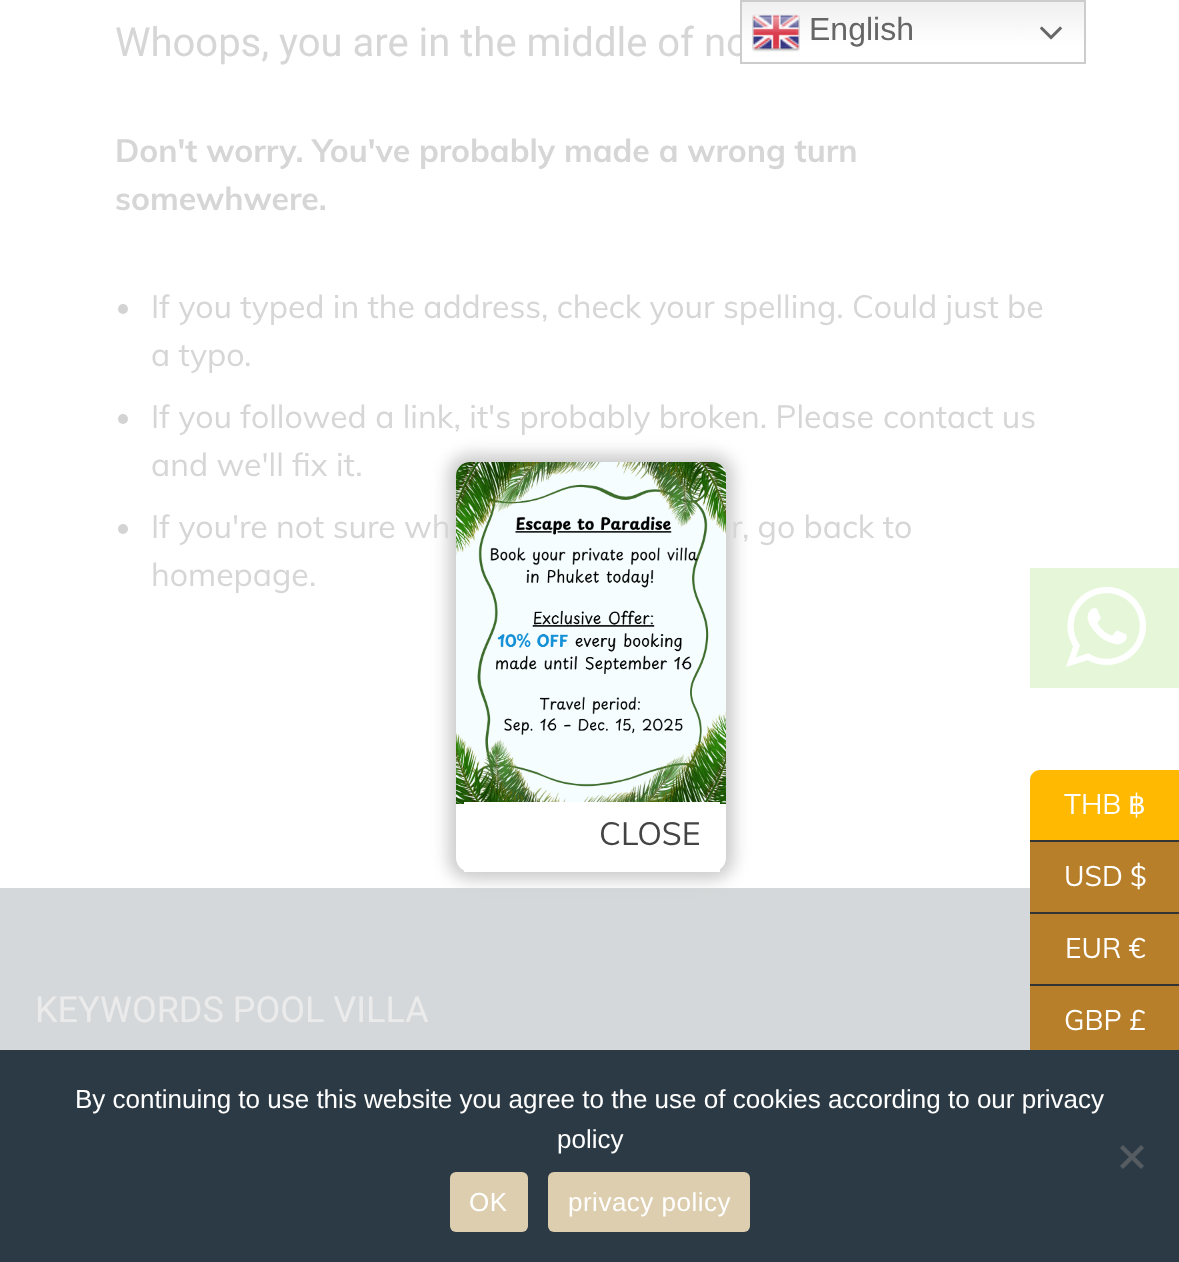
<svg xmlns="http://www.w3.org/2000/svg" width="1179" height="1262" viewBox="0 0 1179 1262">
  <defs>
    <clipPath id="clip1"><path d="M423 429H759V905H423ZM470 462H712C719.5 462 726 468.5 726 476V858C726 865.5 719.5 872 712 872H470C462.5 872 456 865.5 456 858V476C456 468.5 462.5 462 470 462Z" clip-rule="evenodd"/></clipPath>
    <linearGradient id="g1" gradientUnits="userSpaceOnUse" x1="913" y1="0" x2="913" y2="64"><stop offset="0" stop-color="#efefef"/><stop offset="0.7" stop-color="#fff"/></linearGradient>
  </defs>
  <rect width="100%" height="100%" fill="#fff"/>
  <path d="M1030 568h149v120H1030z" fill="#e6f7d9"/>
  <image x="1066" y="587" width="80" height="80" href="img/3.png"/>
  <path d="M0 888h1030v162H0z" fill="#d5d8da"/>
  <path d="M1040 770H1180V842H1030V780C1030 774.5 1034.5 770 1040 770Z" fill="#ffb900"/>
  <path d="M1030 840h149v2H1030z" fill="#333"/>
  <path d="M1030 842h149v70H1030z" fill="#b77f2a"/>
  <path d="M1030 912h149v2H1030z" fill="#333"/>
  <path d="M1030 914h149v70H1030z" fill="#b77f2a"/>
  <path d="M1030 984h149v2H1030z" fill="#333"/>
  <path d="M1030 986h149v64H1030z" fill="#b77f2a"/>
  <path d="M0 1050h1179v212H0z" fill="#2b3a44"/>
  <path d="M1141 1145L1144 1148L1123 1169L1120 1166Z" fill="#565d62"/>
  <path d="M1120 1148L1123 1145L1144 1166L1141 1169Z" fill="#565d62"/>
  <rect x="450" y="1172" width="78" height="60" rx="6" fill="#ddceaf"/>
  <rect x="548" y="1172" width="202" height="60" rx="6" fill="#ddceaf"/>
  <circle cx="123" cy="309" r="5" fill="#d3d3d3"/>
  <circle cx="123" cy="419" r="5" fill="#d3d3d3"/>
  <circle cx="123" cy="529" r="5" fill="#d3d3d3"/>
  <g clip-path="url(#clip1)">
    <rect x="448" y="454" width="286" height="426" rx="22" fill="#ccc" filter="blur(8px)"/>
  </g>
  <path d="M470 462H712C720 462 726 468 726 476V802H456V476C456 468 462 462 470 462Z" fill="#fff"/>
  <image x="456" y="462" width="270" height="342" href="img/4.png"/>
  <path d="M464 802h256v70H464z" fill="#fff"/>
  <text x="35" y="1022" font-family="Roboto" font-size="36" fill="#ebebeb">KEYWORDS POOL VILLA</text>
  <text x="1064" y="814" font-family="Muli" font-size="28" fill="#fff">THB</text>
  <text x="1128" y="814" font-family="DejaVu Sans" font-size="28" fill="#fff">฿</text>
  <g font-family="Muli" font-size="28" fill="#fff">
    <text x="1064" y="886">USD $</text>
    <text x="1065" y="958">EUR €</text>
    <text x="1064" y="1030">GBP £</text>
  </g>
  <g font-family="Liberation Sans" font-size="26" fill="#fff">
    <text x="75" y="1108">By continuing to use this website you agree to the use of cookies according to our privacy</text>
    <text x="557" y="1148">policy</text>
  </g>
  <g font-family="Liberation Sans" font-size="26" letter-spacing="0.5" fill="#fff">
    <text x="469" y="1211">OK</text>
    <text x="568" y="1211">privacy policy</text>
  </g>
  <text x="115" y="56" font-family="Roboto" font-size="40" fill="#d6d6d6">Whoops, you are in the middle of no</text>
  <path d="M742 2h342v54H742z" fill="url(#g1)"/>
  <path d="M741 1h344v62H741z" fill="none" stroke="#ccc" stroke-width="2"/>
  <image x="1040" y="26" width="22" height="14" href="img/2.png"/>
  <image x="752" y="14" width="48" height="38" href="img/1.png"/>
  <text x="809" y="40" font-family="Liberation Sans" font-size="32" fill="#666">English</text>
  <g font-family="Muli" font-size="32" font-weight="bold" fill="#d6d6d6">
    <text x="115" y="162">Don't worry. You've probably made a wrong turn</text>
    <text x="115" y="210">somewhwere.</text>
  </g>
  <g font-family="Muli" font-size="32" fill="#d6d6d6">
    <text x="151" y="318">If you typed in the address, check your spelling. Could just be</text>
    <text x="151" y="366">a typo.</text>
    <text x="151" y="428">If you followed a link, it's probably broken. Please</text>
    <text x="883" y="428">contact us</text>
    <text x="151" y="476">and we'll fix it.</text>
    <text x="151" y="538">If you're not sure wh</text>
    <text x="731" y="538">r, go back to</text>
    <text x="151" y="586">homepage</text>
    <text x="309" y="586">.</text>
  </g>
  <text x="599" y="845" font-family="Muli" font-size="32" fill="#444">CLOSE</text>
</svg>
